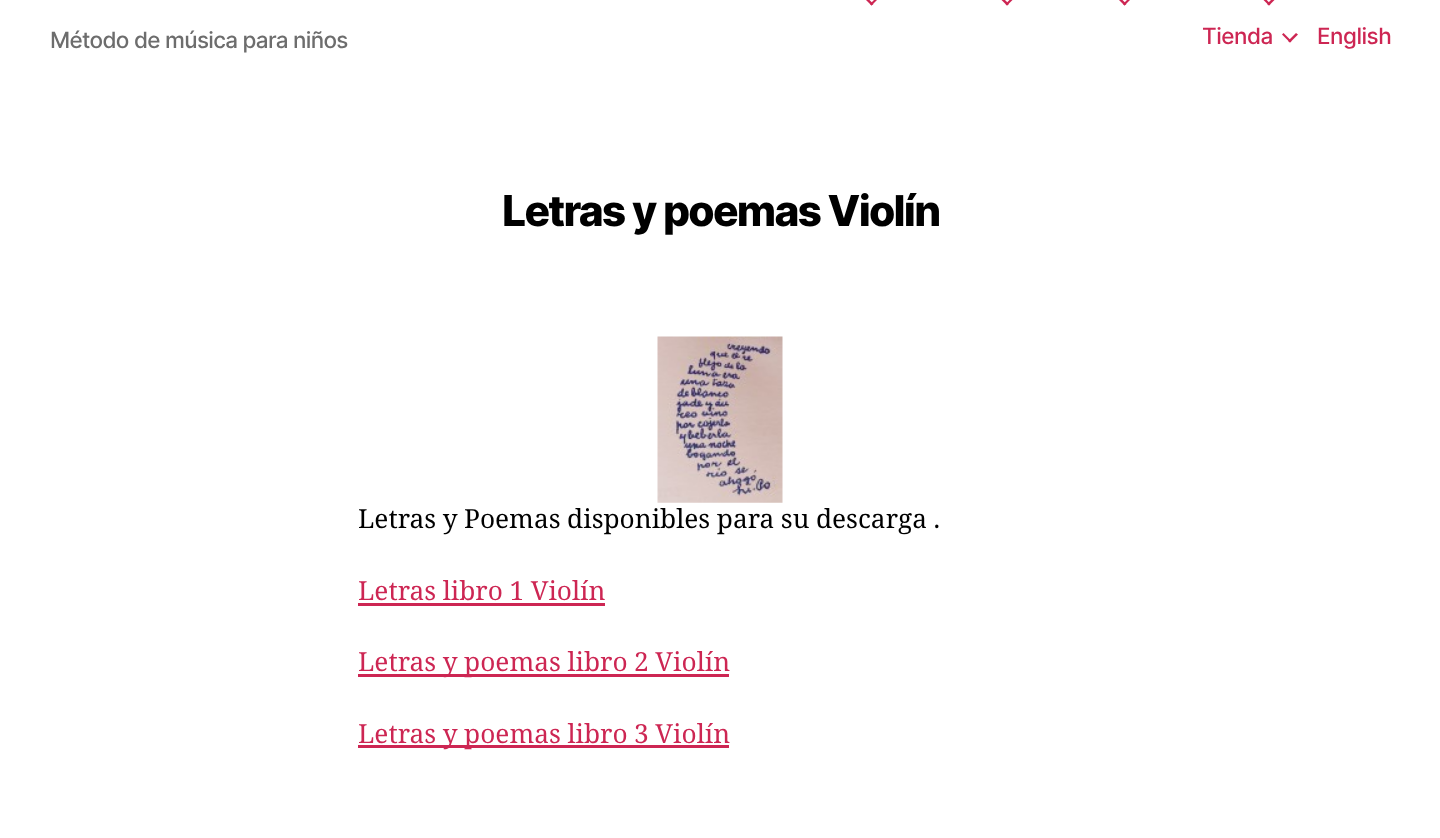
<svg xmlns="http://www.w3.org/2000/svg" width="1440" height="838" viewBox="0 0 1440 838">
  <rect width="100%" height="100%" fill="#fff"/>
  <path d="M863.5-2.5L865.5-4L873.5 4L871.5 5.5Z" fill="#cd2653"/>
  <path d="M870 4L878-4L879.5-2.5L871.5 5.5Z" fill="#cd2653"/>
  <path d="M999-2.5L1001-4L1009 4L1007 5.5Z" fill="#cd2653"/>
  <path d="M1005.5 4L1013.5-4L1015-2.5L1007 5.5Z" fill="#cd2653"/>
  <path d="M1116.5-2.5L1118.5-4L1126.5 4L1124.5 5.5Z" fill="#cd2653"/>
  <path d="M1123 4L1131-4L1132.5-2.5L1124.5 5.5Z" fill="#cd2653"/>
  <path d="M1261-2.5L1263-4L1270.5 4L1269 5.5Z" fill="#cd2653"/>
  <path d="M1267 4L1275-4L1277-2.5L1269 5.5Z" fill="#cd2653"/>
  <path d="M1282 34.5L1283.5 33L1291.5 41L1290 42.5Z" fill="#cd2653"/>
  <path d="M1288 41L1296 33L1298 34.5L1290 42.5Z" fill="#cd2653"/>
  <image x="657" y="336" width="126" height="167" href="img/1.png"/>
  <path d="M358 603h247v3H358z" fill="#cd2653"/>
  <path d="M358 674h371v3H358z" fill="#cd2653"/>
  <path d="M358 745h371v3H358z" fill="#cd2653"/>
  <text x="50" y="48" font-family="Inter" font-size="22.5" font-weight="500" letter-spacing="-0.7" fill="#6d6d6d">Método de música para niños</text>
  <g font-family="Inter" font-size="22.5" font-weight="500" letter-spacing="-0.5" fill="#cd2653">
    <text x="1202" y="44">Tienda</text>
    <text x="1317" y="44">English</text>
  </g>
  <text x="502" y="226" font-family="Inter" font-size="42.5" font-weight="800" letter-spacing="-1.75" fill="#000">Letras y poemas Violín</text>
  <text x="358" y="528" word-spacing="-0.25" font-family="Noto Serif" font-size="26.25" fill="#000">Letras y Poemas disponibles para su descarga .</text>
  <g font-family="Noto Serif" font-size="26.25" fill="#cd2653">
    <text x="358" y="600" word-spacing="-0.25">Letras libro 1 Violín</text>
    <text x="358" y="671" word-spacing="-0.25">Letras y poemas libro 2 Violín</text>
    <text x="358" y="743" word-spacing="-0.25">Letras y poemas libro 3 Violín</text>
  </g>
</svg>
